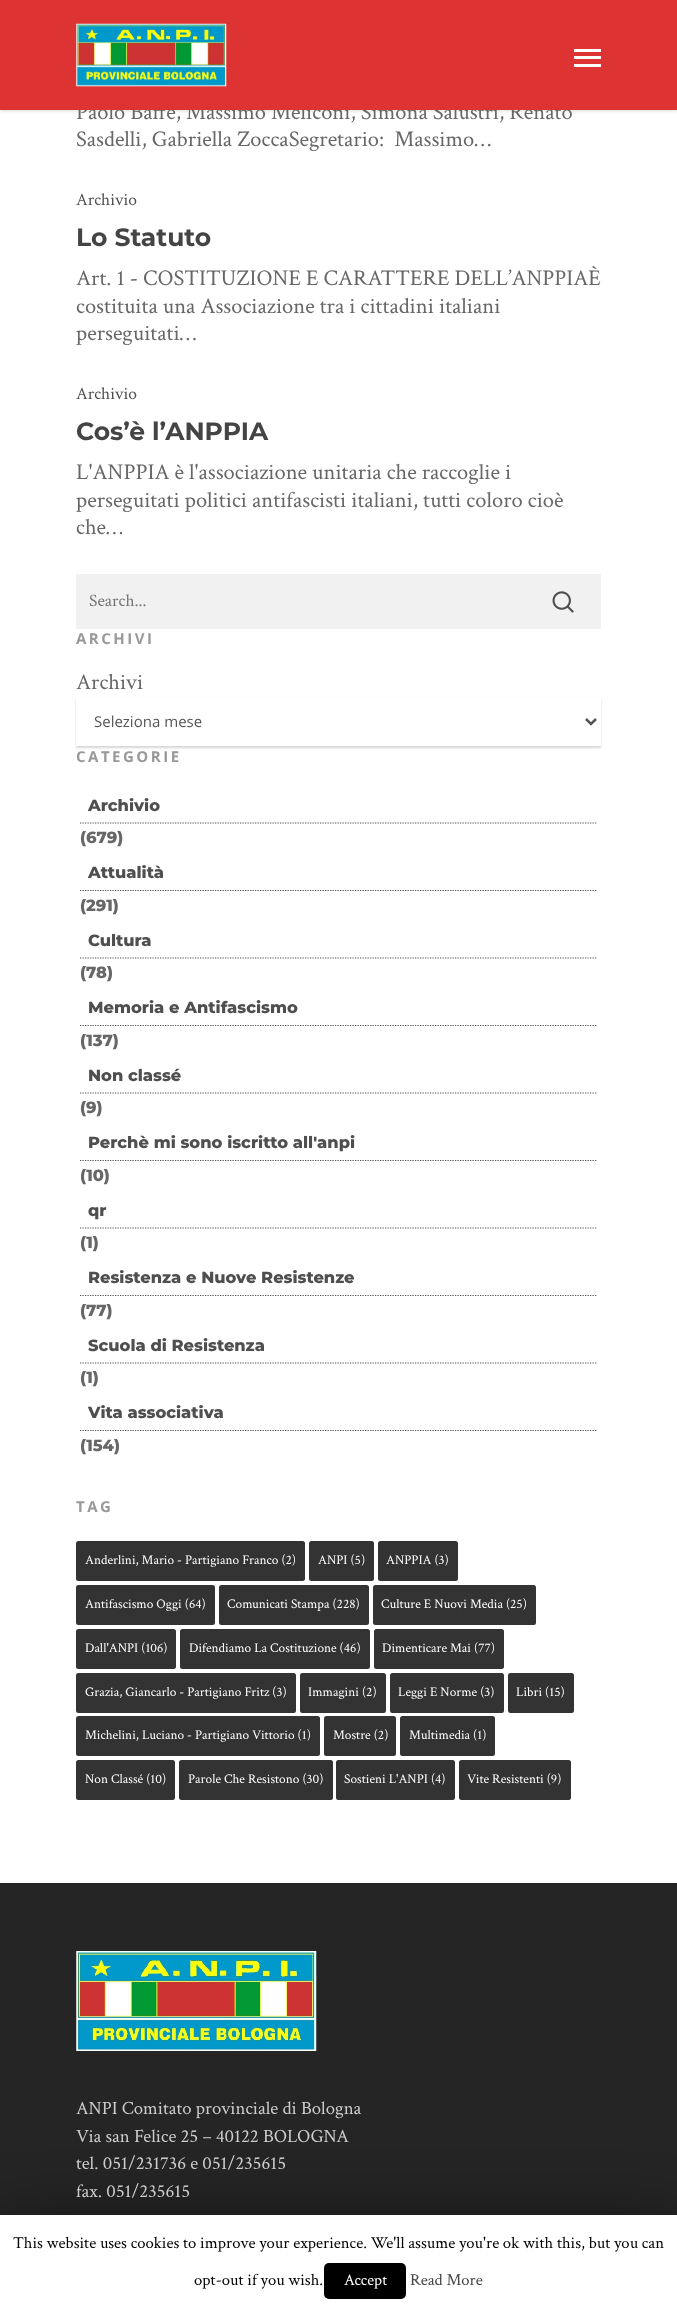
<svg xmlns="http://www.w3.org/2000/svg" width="677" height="2311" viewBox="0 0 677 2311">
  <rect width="100%" height="100%" fill="#252525"/>
  <path d="M0 110h677v1773H0z" fill="#fff"/>
  <path d="M0 0h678v110H0z" fill="#00000038" filter="blur(2px)"/>
  <path d="M76 574h525v55H76z" fill="#f1f1f1"/>
  <image x="552" y="591" width="22" height="22" href="img/2.png"/>
  <path d="M76 699h525v49H76z" fill="#00000029" filter="blur(1px)"/>
  <path d="M76 698h525v48H76z" fill="#fff"/>
  <path d="M586 719L591 724L596 719" fill="none" stroke="#555" stroke-width="2.5"/>
  <path d="M80 823H597.5" fill="none" stroke="#4f4f4f" stroke-width="1.2" stroke-dasharray="1.25 1.25"/>
  <path d="M80 890.5H597.5" fill="none" stroke="#4f4f4f" stroke-width="1.2" stroke-dasharray="1.25 1.25"/>
  <path d="M80 958H597.5" fill="none" stroke="#4f4f4f" stroke-width="1.2" stroke-dasharray="1.25 1.25"/>
  <path d="M80 1025.5H597.5" fill="none" stroke="#4f4f4f" stroke-width="1.2" stroke-dasharray="1.25 1.25"/>
  <path d="M80 1093H597.5" fill="none" stroke="#4f4f4f" stroke-width="1.2" stroke-dasharray="1.25 1.25"/>
  <path d="M80 1160.5H597.5" fill="none" stroke="#4f4f4f" stroke-width="1.2" stroke-dasharray="1.25 1.25"/>
  <path d="M80 1228H597.5" fill="none" stroke="#4f4f4f" stroke-width="1.2" stroke-dasharray="1.25 1.25"/>
  <path d="M80 1295.5H597.5" fill="none" stroke="#4f4f4f" stroke-width="1.2" stroke-dasharray="1.25 1.25"/>
  <path d="M80 1363H597.5" fill="none" stroke="#4f4f4f" stroke-width="1.2" stroke-dasharray="1.25 1.25"/>
  <path d="M80 1430.5H597.5" fill="none" stroke="#4f4f4f" stroke-width="1.2" stroke-dasharray="1.25 1.25"/>
  <rect x="76" y="1541" width="229" height="40" rx="2.5" fill="#333"/>
  <rect x="309" y="1541" width="65" height="40" rx="2.5" fill="#333"/>
  <rect x="378" y="1541" width="80" height="40" rx="2.5" fill="#333"/>
  <rect x="76" y="1585" width="139" height="40" rx="2.5" fill="#333"/>
  <rect x="219" y="1585" width="150" height="40" rx="2.5" fill="#333"/>
  <rect x="373" y="1585" width="163" height="40" rx="2.5" fill="#333"/>
  <rect x="76" y="1629" width="100" height="40" rx="2.5" fill="#333"/>
  <rect x="180" y="1629" width="190" height="40" rx="2.5" fill="#333"/>
  <rect x="374" y="1629" width="130" height="40" rx="2.5" fill="#333"/>
  <rect x="76" y="1673" width="220" height="40" rx="2.5" fill="#333"/>
  <rect x="300" y="1673" width="86" height="40" rx="2.5" fill="#333"/>
  <rect x="390" y="1673" width="114" height="40" rx="2.5" fill="#333"/>
  <rect x="508" y="1673" width="66" height="40" rx="2.5" fill="#333"/>
  <rect x="76" y="1716" width="244" height="40" rx="2.5" fill="#333"/>
  <rect x="324" y="1716" width="72" height="40" rx="2.5" fill="#333"/>
  <rect x="400" y="1716" width="95" height="40" rx="2.5" fill="#333"/>
  <rect x="76" y="1760" width="99" height="40" rx="2.5" fill="#333"/>
  <rect x="179" y="1760" width="154" height="40" rx="2.5" fill="#333"/>
  <rect x="336" y="1760" width="119" height="40" rx="2.5" fill="#333"/>
  <rect x="459" y="1760" width="112" height="40" rx="2.5" fill="#333"/>
  <image x="76" y="1951" width="241" height="100" href="img/3.png"/>
  <path d="M0 2221h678v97H0z" fill="#00000080" filter="blur(31px)"/>
  <path d="M0 2215h677v96H0z" fill="#fff"/>
  <rect x="324" y="2263" width="82" height="36" rx="5" fill="#000"/>
  <text x="76" y="119" font-family="Crimson Text" font-size="22.5" fill="#676767">Paolo Baffè, Massimo Meliconi, Simona Salustri, Renato</text>
  <path d="M0 0h677v110H0z" fill="#d33"/>
  <path d="M574 56h27v3H574z" fill="#fff"/>
  <path d="M574 49h27v3H574z" fill="#fff"/>
  <path d="M574 64h27v3H574z" fill="#fff"/>
  <image x="76" y="23" width="151" height="64" href="img/1.png"/>
  <text x="76" y="146" font-family="Crimson Text" font-size="22.5" fill="#676767" xml:space="preserve">Sasdelli, Gabriella ZoccaSegretario:  Massimo…</text>
  <text x="76" y="205" font-family="Crimson Text" font-size="17.5" fill="#4f4f4f">Archivio</text>
  <text x="76" y="246" font-family="Montserrat" font-size="25" font-weight="bold" fill="#444">Lo Statuto</text>
  <g font-family="Crimson Text" font-size="22.5" fill="#676767">
    <text x="76" y="285">Art. 1 - COSTITUZIONE E CARATTERE DELL’ANPPIAÈ</text>
    <text x="76" y="313">costituita una Associazione tra i cittadini italiani</text>
    <text x="76" y="340">perseguitati…</text>
  </g>
  <text x="76" y="399" font-family="Crimson Text" font-size="17.5" fill="#4f4f4f">Archivio</text>
  <text x="76" y="440" font-family="Montserrat" font-size="25" font-weight="bold" fill="#444">Cos’è l’ANPPIA</text>
  <g font-family="Crimson Text" font-size="22.5" fill="#676767">
    <text x="76" y="479">L'ANPPIA è l'associazione unitaria che raccoglie i</text>
    <text x="76" y="507">perseguitati politici antifascisti italiani, tutti coloro cioè</text>
    <text x="76" y="534">che…</text>
  </g>
  <text x="89" y="606" font-family="Crimson Text" font-size="17.5" fill="#757575">Search...</text>
  <text x="76" y="644" font-family="Open Sans" font-size="15" font-weight="bold" letter-spacing="2.5" fill="#999">ARCHIVI</text>
  <text x="76" y="689" font-family="Crimson Text" font-size="22.5" fill="#676767">Archivi</text>
  <text x="94" y="727" font-family="Open Sans" font-size="15" fill="#555">Seleziona mese</text>
  <text x="76" y="762" font-family="Open Sans" font-size="15" font-weight="bold" letter-spacing="2.5" fill="#999">CATEGORIE</text>
  <text x="88" y="811" font-family="Montserrat" font-size="16.25" font-weight="800" fill="#4f4f4f">Archivio</text>
  <text x="80" y="843" font-family="Montserrat" font-size="16.25" font-weight="800" fill="#676767">(679)</text>
  <text x="88" y="878" font-family="Montserrat" font-size="16.25" font-weight="800" fill="#4f4f4f">Attualità</text>
  <text x="80" y="911" font-family="Montserrat" font-size="16.25" font-weight="800" fill="#676767">(291)</text>
  <text x="88" y="946" font-family="Montserrat" font-size="16.25" font-weight="800" fill="#4f4f4f">Cultura</text>
  <text x="80" y="978" font-family="Montserrat" font-size="16.25" font-weight="800" fill="#676767">(78)</text>
  <text x="88" y="1013" font-family="Montserrat" font-size="16.25" font-weight="800" fill="#4f4f4f">Memoria e Antifascismo</text>
  <text x="80" y="1046" font-family="Montserrat" font-size="16.25" font-weight="800" fill="#676767">(137)</text>
  <text x="88" y="1081" font-family="Montserrat" font-size="16.25" font-weight="800" fill="#4f4f4f">Non classé</text>
  <text x="80" y="1113" font-family="Montserrat" font-size="16.25" font-weight="800" fill="#676767">(9)</text>
  <text x="88" y="1148" font-family="Montserrat" font-size="16.25" font-weight="800" fill="#4f4f4f">Perchè mi sono iscritto all'anpi</text>
  <text x="80" y="1181" font-family="Montserrat" font-size="16.25" font-weight="800" fill="#676767">(10)</text>
  <text x="88" y="1216" font-family="Montserrat" font-size="16.25" font-weight="800" fill="#4f4f4f">qr</text>
  <text x="80" y="1248" font-family="Montserrat" font-size="16.25" font-weight="800" fill="#676767">(1)</text>
  <text x="88" y="1283" font-family="Montserrat" font-size="16.25" font-weight="800" fill="#4f4f4f">Resistenza e Nuove Resistenze</text>
  <text x="80" y="1316" font-family="Montserrat" font-size="16.25" font-weight="800" fill="#676767">(77)</text>
  <text x="88" y="1351" font-family="Montserrat" font-size="16.25" font-weight="800" fill="#4f4f4f">Scuola di Resistenza</text>
  <text x="80" y="1383" font-family="Montserrat" font-size="16.25" font-weight="800" fill="#676767">(1)</text>
  <text x="88" y="1418" font-family="Montserrat" font-size="16.25" font-weight="800" fill="#4f4f4f">Vita associativa</text>
  <text x="80" y="1451" font-family="Montserrat" font-size="16.25" font-weight="800" fill="#676767">(154)</text>
  <text x="76" y="1512" font-family="Open Sans" font-size="15" font-weight="bold" letter-spacing="2.5" fill="#999">TAG</text>
  <g font-family="Crimson Text" font-size="13.3" fill="#fff">
    <text x="85" y="1564">Anderlini, Mario - Partigiano Franco (2)</text>
    <text x="318" y="1564">ANPI (5)</text>
    <text x="386" y="1564">ANPPIA (3)</text>
    <text x="85" y="1608">Antifascismo Oggi (64)</text>
    <text x="227" y="1608">Comunicati Stampa (228)</text>
    <text x="381" y="1608">Culture E Nuovi Media (25)</text>
    <text x="85" y="1652">Dall'ANPI (106)</text>
    <text x="189" y="1652">Difendiamo La Costituzione (46)</text>
    <text x="382" y="1652">Dimenticare Mai (77)</text>
    <text x="85" y="1696">Grazia, Giancarlo - Partigiano Fritz (3)</text>
    <text x="308" y="1696">Immagini (2)</text>
    <text x="398" y="1696">Leggi E Norme (3)</text>
    <text x="516" y="1696">Libri (15)</text>
    <text x="85" y="1739">Michelini, Luciano - Partigiano Vittorio (1)</text>
    <text x="333" y="1739">Mostre (2)</text>
    <text x="409" y="1739">Multimedia (1)</text>
    <text x="85" y="1783">Non Classé (10)</text>
    <text x="188" y="1783">Parole Che Resistono (30)</text>
    <text x="344" y="1783">Sostieni L'ANPI (4)</text>
    <text x="467" y="1783">Vite Resistenti (9)</text>
  </g>
  <g font-family="Crimson Text" font-size="18.75" fill="#ccc">
    <text x="76" y="2114">ANPI Comitato provinciale di Bologna</text>
    <text x="76" y="2142">Via san Felice 25 – 40122 BOLOGNA</text>
    <text x="76" y="2169">tel. 051/231736 e 051/235615</text>
    <text x="76" y="2197">fax. 051/235615</text>
  </g>
  <g font-family="Crimson Text" font-size="16.65" fill="#000">
    <text x="13" y="2248">This website uses cookies to improve your experience. We'll assume you're ok with this, but you can</text>
    <text x="194" y="2285">opt-out if you wish.</text>
  </g>
  <text x="344" y="2285" font-family="Crimson Text" font-size="16.25" fill="#fff">Accept</text>
  <text x="410" y="2285" font-family="Crimson Text" font-size="16.65" fill="#444">Read More</text>
</svg>
